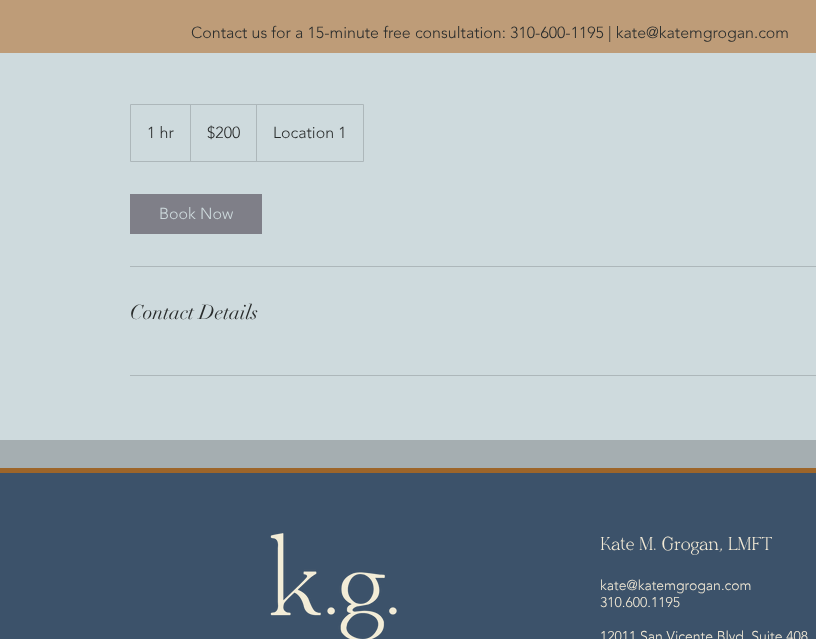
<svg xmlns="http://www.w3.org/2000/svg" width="816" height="639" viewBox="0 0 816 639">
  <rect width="100%" height="100%" fill="#a5aeb1"/>
  <path d="M0 0h816v53H0z" fill="#be9c78"/>
  <path d="M0 53h816v387H0z" fill="#cedadd"/>
  <path d="M130.5 104.5h233v57H130.5z" fill="none" stroke="#adb7ba"/>
  <path d="M190 161V104L191 105V161Z" fill="#adb7ba"/>
  <path d="M256 161V104L257 105V161Z" fill="#adb7ba"/>
  <path d="M130 194h132v40H130z" fill="#7f7f88"/>
  <path d="M130 266h686v1H130z" fill="#adb7ba"/>
  <path d="M130 375h686v1H130z" fill="#adb7ba"/>
  <path d="M0 473h816v166H0z" fill="#3c526a"/>
  <path d="M0 468h816v5H0z" fill="#9d6529"/>
  <image x="270" y="533" width="127" height="106" href="img/1.png"/>
  <g font-family="'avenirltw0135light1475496'" font-size="16" font-weight="300" fill="#292c2c">
    <text x="191" y="38">Contact us for a 15-minute free consultation: 310-600-1195 | kate@katemgrogan.com</text>
    <text x="147" y="138">1 hr</text>
    <text x="207" y="138">$200</text>
    <text x="273" y="138">Location 1</text>
  </g>
  <text x="159" y="219" font-family="'avenirltw0135light1475496'" font-size="16" font-weight="300" fill="#cedadd">Book Now</text>
  <text x="130" y="319" font-family="didot" font-size="20" fill="#292c2c">Contact Details</text>
  <text x="600" y="550" font-family="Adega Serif" font-size="20" fill="#f4ebd7">Kate M. Grogan, LMFT</text>
  <g font-family="'avenirltw0135light1475496'" font-size="14" font-weight="300" fill="#f4ebd7">
    <text x="600" y="590">kate@katemgrogan.com</text>
    <text x="600" y="607">310.600.1195</text>
    <text x="600" y="641">12011 San Vicente Blvd, Suite 408</text>
  </g>
</svg>
